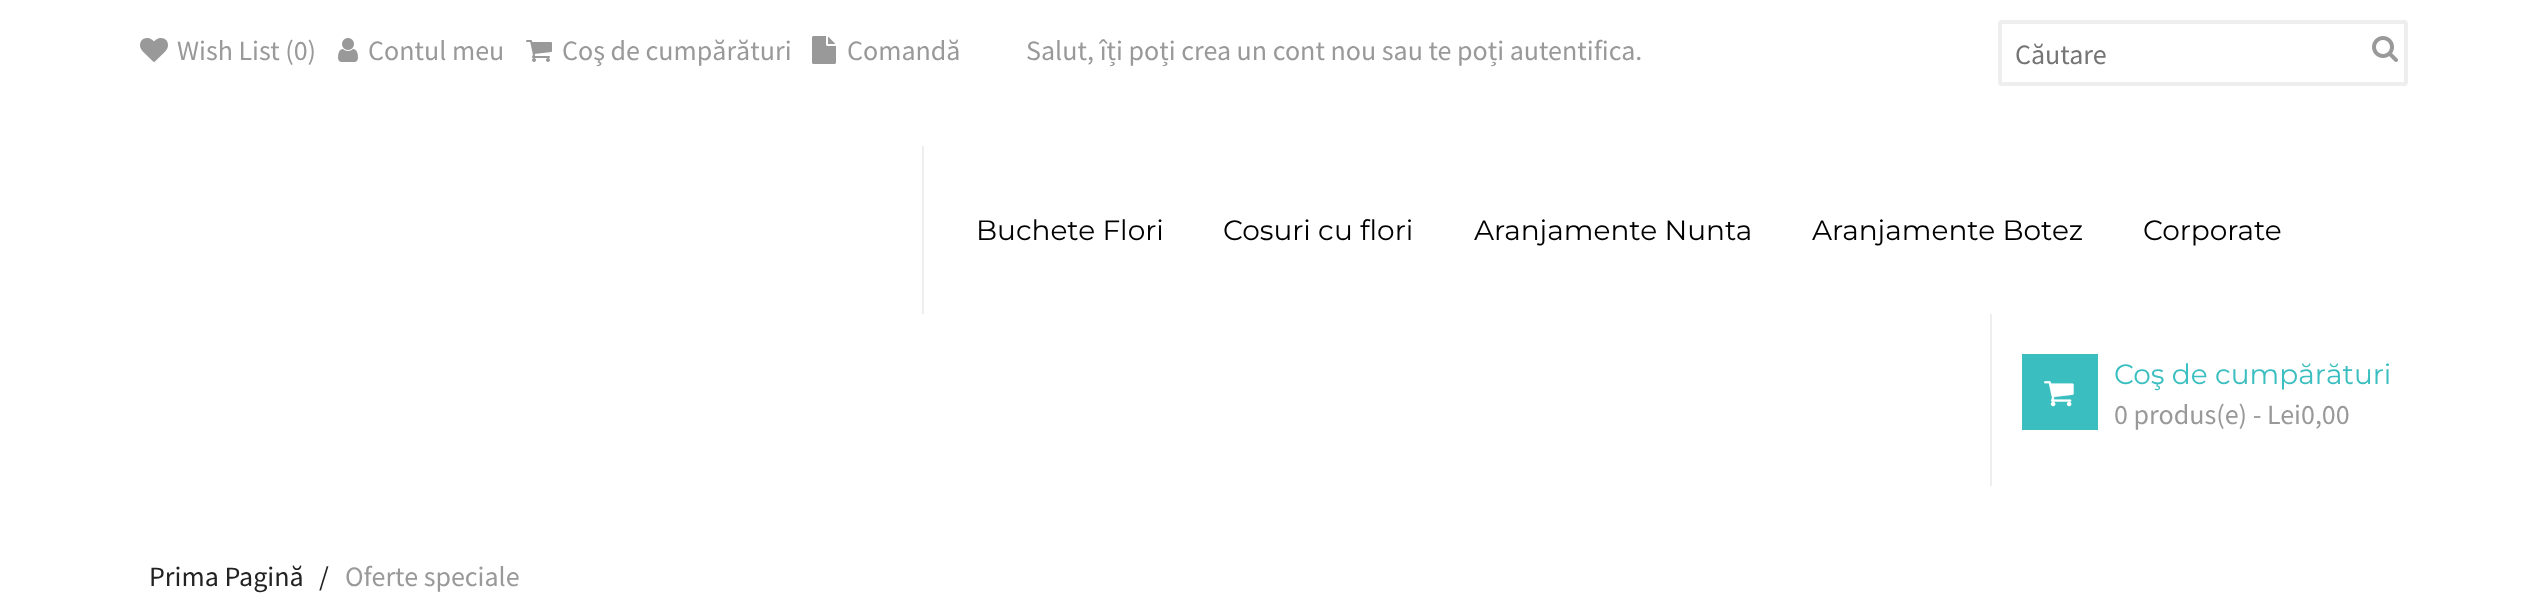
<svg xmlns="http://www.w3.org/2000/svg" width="2538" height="609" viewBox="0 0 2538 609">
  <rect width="100%" height="100%" fill="#fff"/>
  <image x="140" y="38" width="28" height="24" href="img/1.png"/>
  <image x="338" y="38" width="20" height="24" href="img/2.png"/>
  <image x="526" y="40" width="26" height="22" href="img/3.png"/>
  <image x="812" y="36" width="24" height="28" href="img/4.png"/>
  <rect x="2000" y="22" width="406" height="62" rx="2" fill="none" stroke="#eee" stroke-width="4"/>
  <image x="2372" y="36" width="26" height="26" href="img/5.png"/>
  <path d="M922 146h2v168H922z" fill="#eee"/>
  <path d="M1990 314h2v172H1990z" fill="#eee"/>
  <path d="M2022 354h76v76H2022z" fill="#3abec0"/>
  <image x="2044" y="381" width="30" height="26" href="img/6.png"/>
  <g font-family="Source Sans Pro" font-size="28" fill="#999">
    <text x="177" y="60">Wish List (0)</text>
    <text x="368" y="60">Contul meu</text>
    <text x="562" y="60">Coş de cumpărături</text>
    <text x="847" y="60">Comandă</text>
    <text x="1026" y="60">Salut, îți poți crea un cont nou sau te poți autentifica.</text>
  </g>
  <text x="2015" y="64" font-family="Source Sans Pro" font-size="28" fill="#757575">Căutare</text>
  <g font-family="Montserrat" font-size="28" fill="#000">
    <text x="976" y="240">Buchete Flori</text>
    <text x="1223" y="240">Cosuri cu flori</text>
    <text x="1474" y="240">Aranjamente Nunta</text>
    <text x="1812" y="240">Aranjamente Botez</text>
    <text x="2143" y="240">Corporate</text>
  </g>
  <text x="2114" y="384" font-family="Montserrat" font-size="28" fill="#3abec0">Coş de cumpărături</text>
  <text x="2114" y="424" font-family="Source Sans Pro" font-size="28" fill="#999">0 produs(e) - Lei0,00</text>
  <g font-family="Source Sans Pro" font-size="28" fill="#222">
    <text x="149" y="586">Prima Pagină</text>
    <text x="319" y="586">/</text>
  </g>
  <text x="345" y="586" font-family="Source Sans Pro" font-size="28" fill="#999">Oferte speciale</text>
</svg>
